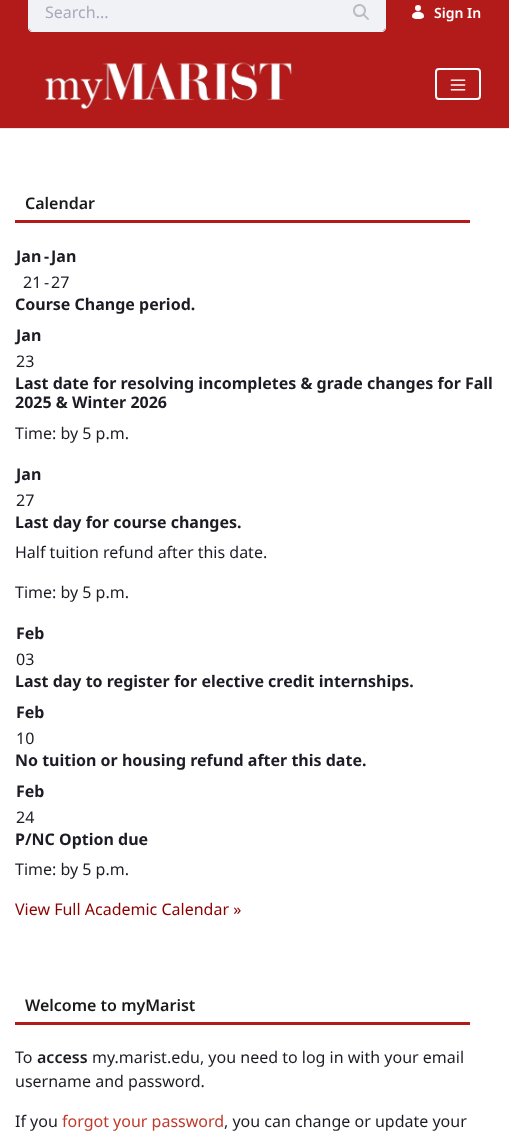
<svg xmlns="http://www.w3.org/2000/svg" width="509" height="1146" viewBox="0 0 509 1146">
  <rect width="100%" height="100%" fill="#fff"/>
  <path d="M0 0h509v128H0z" fill="#b31b1b"/>
  <path d="M32-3H337V31H32C30.5 31 29 29.5 29 28V0C29-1.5 30.5-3 32-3Z" fill="#f1f2f5"/>
  <path d="M32-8H337V32H32C30 32 28 30 28 28V-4C28-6 30-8 32-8ZM32-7H337V31H32C30 31 29 30 29 28V-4C29-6 30-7 32-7Z" fill="#f1f2f5" fill-rule="evenodd"/>
  <path d="M337-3H382C383.5-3 385-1.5 385 0V28C385 29.5 383.5 31 382 31H337Z" fill="#f1f2f5"/>
  <path d="M337-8H382C384-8 386-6 386-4V28C386 30 384 32 382 32H337ZM337-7H382C384-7 385-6 385-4V28C385 30 384 31 382 31H337Z" fill="#f1f2f5" fill-rule="evenodd"/>
  <image x="353" y="4" width="16" height="16" href="img/1.png"/>
  <image x="412" y="5" width="12" height="14" href="img/2.png"/>
  <path d="M0 128h509v1H0z" fill="#e7e7ed"/>
  <image x="45" y="62" width="247" height="48" href="img/3.png"/>
  <rect x="436" y="69" width="44" height="30" rx="3" fill="none" stroke="#fff" stroke-width="2"/>
  <image x="450" y="79" width="16" height="12" href="img/4.png"/>
  <path d="M15 220h455v3H15z" fill="#b31b1b"/>
  <path d="M15 1022h455v3H15z" fill="#b31b1b"/>
  <text x="45" y="18" font-family="Noto Sans" font-size="16" fill="#a7a9bc">Search...</text>
  <text x="434" y="18" font-family="Noto Sans" font-size="14" font-weight="600" fill="#fff">Sign In</text>
  <text x="25" y="209" font-family="Noto Sans" font-size="16" font-weight="600" fill="#1a1a1a">Calendar</text>
  <g font-family="Noto Sans" font-size="16" font-weight="bold" fill="#1c1c24">
    <text x="16" y="262">Jan</text>
    <text x="44" y="262">-</text>
    <text x="51" y="262">Jan</text>
  </g>
  <g font-family="Noto Sans" font-size="16" fill="#1c1c24">
    <text x="23" y="288">21</text>
    <text x="44" y="288">-</text>
    <text x="51" y="288">27</text>
  </g>
  <g font-family="Noto Sans" font-size="16" font-weight="bold" fill="#1c1c24">
    <text x="15" y="310">Course Change period.</text>
    <text x="16" y="341">Jan</text>
  </g>
  <text x="16" y="367" font-family="Noto Sans" font-size="16" fill="#1c1c24">23</text>
  <g font-family="Noto Sans" font-size="16" font-weight="bold" fill="#1c1c24">
    <text x="15" y="389">Last date for resolving incompletes &amp; grade changes for Fall</text>
    <text x="15" y="408">2025 &amp; Winter 2026</text>
  </g>
  <text x="15" y="439" font-family="Noto Sans" font-size="16" fill="#1c1c24">Time: by 5 p.m.</text>
  <text x="16" y="480" font-family="Noto Sans" font-size="16" font-weight="bold" fill="#1c1c24">Jan</text>
  <text x="16" y="506" font-family="Noto Sans" font-size="16" fill="#1c1c24">27</text>
  <text x="15" y="528" font-family="Noto Sans" font-size="16" font-weight="bold" fill="#1c1c24">Last day for course changes.</text>
  <g font-family="Noto Sans" font-size="16" fill="#1c1c24">
    <text x="15" y="558">Half tuition refund after this date.</text>
    <text x="15" y="598">Time: by 5 p.m.</text>
  </g>
  <text x="16" y="639" font-family="Noto Sans" font-size="16" font-weight="bold" fill="#1c1c24">Feb</text>
  <text x="16" y="665" font-family="Noto Sans" font-size="16" fill="#1c1c24">03</text>
  <g font-family="Noto Sans" font-size="16" font-weight="bold" fill="#1c1c24">
    <text x="15" y="687">Last day to register for elective credit internships.</text>
    <text x="16" y="718">Feb</text>
  </g>
  <text x="16" y="744" font-family="Noto Sans" font-size="16" fill="#1c1c24">10</text>
  <g font-family="Noto Sans" font-size="16" font-weight="bold" fill="#1c1c24">
    <text x="15" y="766">No tuition or housing refund after this date.</text>
    <text x="16" y="797">Feb</text>
  </g>
  <text x="16" y="823" font-family="Noto Sans" font-size="16" fill="#1c1c24">24</text>
  <text x="15" y="845" font-family="Noto Sans" font-size="16" font-weight="bold" fill="#1c1c24">P/NC Option due</text>
  <text x="15" y="875" font-family="Noto Sans" font-size="16" fill="#1c1c24">Time: by 5 p.m.</text>
  <text x="15" y="915" font-family="Noto Sans" font-size="16" fill="#8b0000">View Full Academic Calendar »</text>
  <text x="25" y="1011" font-family="Noto Sans" font-size="16" font-weight="600" fill="#1a1a1a">Welcome to myMarist</text>
  <text x="15" y="1063" font-family="Noto Sans" font-size="16" fill="#1c1c24">To</text>
  <text x="37" y="1063" font-family="Noto Sans" font-size="16" font-weight="600" fill="#1c1c24">access</text>
  <g font-family="Noto Sans" font-size="16" fill="#1c1c24">
    <text x="92" y="1063">my.marist.edu, you need to log in with your email</text>
    <text x="15" y="1087">username and password.</text>
    <text x="15" y="1127">If you</text>
  </g>
  <text x="62" y="1127" font-family="Noto Sans" font-size="16" fill="#c0392b">forgot your password</text>
  <text x="224" y="1127" font-family="Noto Sans" font-size="16" fill="#1c1c24">, you can change or update your</text>
</svg>
